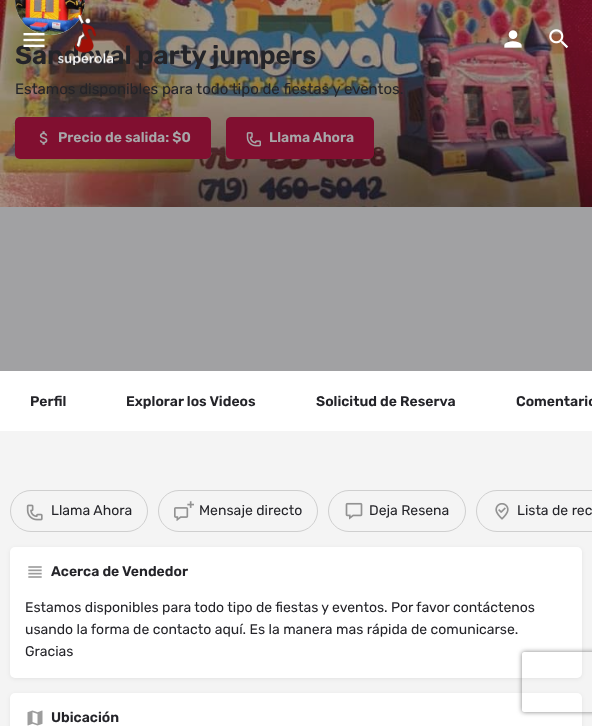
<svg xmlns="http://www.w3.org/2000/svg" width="592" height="726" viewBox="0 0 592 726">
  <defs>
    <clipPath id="clip1"><path d="M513 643H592V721H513ZM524 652H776C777 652 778 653 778 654V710C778 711 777 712 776 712H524C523 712 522 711 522 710V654C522 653 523 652 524 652Z" clip-rule="evenodd"/></clipPath>
  </defs>
  <rect width="100%" height="100%" fill="#f4f4f4"/>
  <path d="M0 207h592v164H0z" fill="#a1a1a3"/>
  <image x="0" y="0" width="592" height="207" href="img/5.png"/>
  <image x="504" y="30" width="18" height="18" href="img/3.png"/>
  <image x="549" y="29" width="20" height="20" href="img/4.png"/>
  <path d="M15 0H85C85 19.5 69.5 35 50 35C30.5 35 15 19.5 15 0Z" fill="#dde5e6"/>
  <image x="15" y="0" width="70" height="35" href="img/6.png"/>
  <rect x="15" y="117" width="196" height="42" rx="5" fill="#810f30"/>
  <image x="39" y="131" width="9" height="14" href="img/7.png"/>
  <rect x="226" y="117" width="148" height="42" rx="5" fill="#810f30"/>
  <image x="246" y="132" width="15" height="15" href="img/8.png"/>
  <path d="M0 371h592v60H0z" fill="#fff"/>
  <rect x="10.5" y="490.5" width="137" height="41" rx="20.5" fill="none" stroke="#cfcfcf"/>
  <image x="26" y="504" width="17" height="17" href="img/9.png"/>
  <rect x="158.5" y="490.5" width="159" height="41" rx="20.5" fill="none" stroke="#cfcfcf"/>
  <image x="174" y="501" width="20" height="20" href="img/10.png"/>
  <rect x="328.5" y="490.5" width="137" height="41" rx="20.5" fill="none" stroke="#cfcfcf"/>
  <image x="345" y="502" width="18" height="18" href="img/11.png"/>
  <rect x="476.5" y="490.5" width="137" height="41" rx="20.5" fill="none" stroke="#cfcfcf"/>
  <image x="495" y="503" width="14" height="17" href="img/12.png"/>
  <rect x="10" y="548" width="572" height="131" rx="5" fill="#00000012" filter="blur(2px)"/>
  <rect x="10" y="547" width="572" height="131" rx="5" fill="#fff"/>
  <image x="28" y="566" width="14" height="12" href="img/13.png"/>
  <rect x="10" y="694" width="572" height="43" rx="5" fill="#00000012" filter="blur(2px)"/>
  <rect x="10" y="693" width="572" height="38" rx="5" fill="#fff"/>
  <image x="27" y="710" width="16" height="16" href="img/14.png"/>
  <g clip-path="url(#clip1)">
    <rect x="522" y="652" width="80" height="60" rx="2" fill="#808080" filter="blur(2.5px)"/>
  </g>
  <text x="15" y="64" font-family="Rubik" font-size="26" font-weight="600" fill="#242429">Sandoval party jumpers</text>
  <image x="23" y="33" width="22" height="14" href="img/1.png"/>
  <image x="58" y="15" width="55" height="50" href="img/2.png"/>
  <text x="15" y="94" font-family="Rubik" font-size="15" fill="#242429">Estamos disponibles para todo tipo de fiestas y eventos.</text>
  <g font-family="Rubik" font-size="14" font-weight="600" fill="#a7a7a9">
    <text x="58" y="142">Precio de salida: $0</text>
    <text x="269" y="142">Llama Ahora</text>
  </g>
  <g font-family="Rubik" font-size="14" font-weight="600" fill="#242429">
    <text x="30" y="406">Perfil</text>
    <text x="126" y="406">Explorar los Videos</text>
    <text x="316" y="406">Solicitud de Reserva</text>
    <text x="516" y="406">Comentario</text>
  </g>
  <g font-family="Rubik" font-size="14" fill="#242429">
    <text x="51" y="515">Llama Ahora</text>
    <text x="199" y="515">Mensaje directo</text>
    <text x="369" y="515">Deja Resena</text>
    <text x="517" y="515">Lista de rec</text>
  </g>
  <text x="51" y="576" font-family="Rubik" font-size="14" font-weight="600" fill="#242429">Acerca de Vendedor</text>
  <g font-family="Rubik" font-size="14" fill="#242429">
    <text x="25" y="612">Estamos disponibles para todo tipo de fiestas y eventos. Por favor contáctenos</text>
    <text x="25" y="634">usando la forma de contacto aquí. Es la manera mas rápida de comunicarse.</text>
    <text x="25" y="656">Gracias</text>
  </g>
  <text x="51" y="722" font-family="Rubik" font-size="14" font-weight="600" fill="#242429">Ubicación</text>
</svg>
